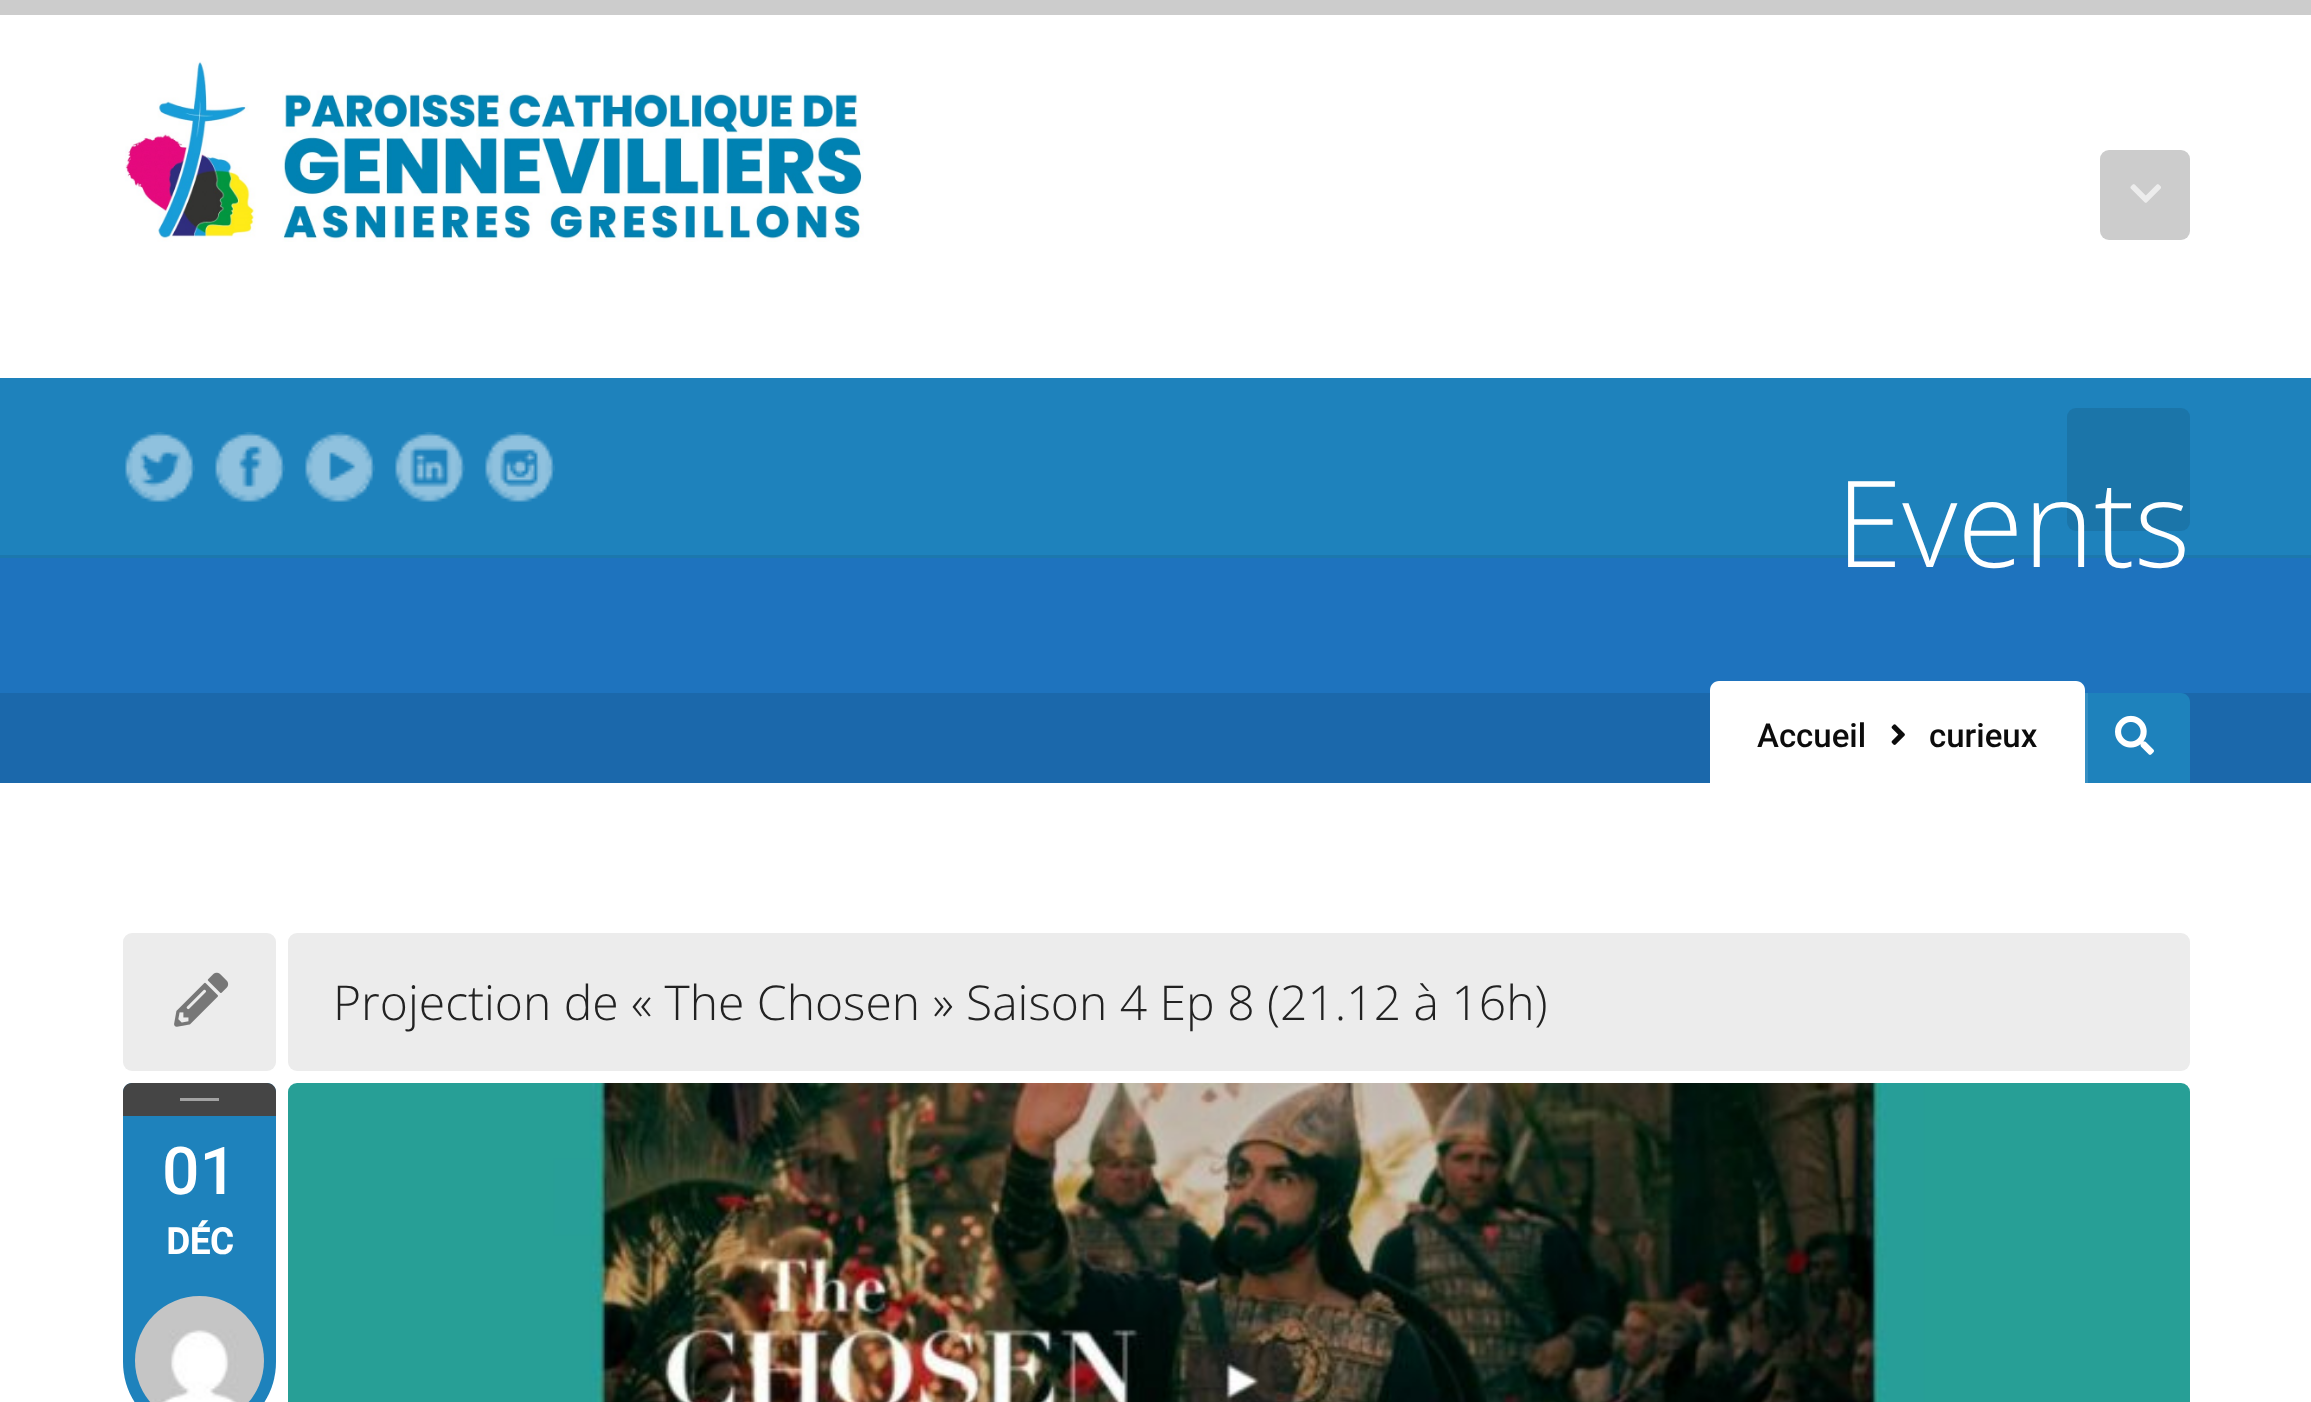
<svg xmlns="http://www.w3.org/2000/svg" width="2311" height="1402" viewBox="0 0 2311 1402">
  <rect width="100%" height="100%" fill="#fff"/>
  <path d="M0 0h2311v15H0z" fill="#ccc"/>
  <image x="125" y="61" width="739" height="181" href="img/1.png"/>
  <rect x="2100" y="150" width="90" height="90" rx="9" fill="#ccc"/>
  <image x="2130" y="184" width="31" height="19" href="img/2.png"/>
  <path d="M0 378h2311v177H0z" fill="#1e82bc"/>
  <image x="125" y="432" width="70" height="70" href="img/3.png"/>
  <image x="215" y="432" width="70" height="70" href="img/4.png"/>
  <image x="305" y="432" width="70" height="70" href="img/5.png"/>
  <image x="395" y="432" width="70" height="70" href="img/6.png"/>
  <image x="485" y="432" width="70" height="70" href="img/7.png"/>
  <rect x="2067" y="408" width="123" height="123" rx="9" fill="#1b75a9"/>
  <path d="M0 555h2311v3H0z" fill="#1c78ad"/>
  <path d="M0 558h2311v135H0z" fill="#1e73be"/>
  <path d="M0 693h2311v90H0z" fill="#1b68ab"/>
  <path d="M1719 681H2076C2081 681 2085 685 2085 690V786H1710V690C1710 685 1714 681 1719 681Z" fill="#fff"/>
  <image x="1891" y="724" width="14" height="21" href="img/8.png"/>
  <path d="M2085 693H2181C2186 693 2190 697 2190 702V783H2085Z" fill="#1e82bc"/>
  <path d="M2085 693h3v90H2085z" fill="#358fc3"/>
  <image x="2115" y="715" width="39" height="40" href="img/9.png"/>
  <rect x="288" y="933" width="1902" height="138" rx="9" fill="#ececec"/>
  <image x="288" y="1083" width="1902" height="319" href="img/10.png"/>
  <rect x="123" y="933" width="153" height="138" rx="9" fill="#ececec"/>
  <image x="174" y="972" width="55" height="55" href="img/11.png"/>
  <path d="M132 1083H267C272 1083 276 1087 276 1092V1362C276 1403.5 242.5 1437 201 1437H198C156.5 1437 123 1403.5 123 1362V1092C123 1087 127 1083 132 1083Z" fill="#1e82bc"/>
  <path d="M132 1083H267C272 1083 276 1087 276 1092V1116H123V1092C123 1087 127 1083 132 1083Z" fill="#454545"/>
  <path d="M180 1098h39v3H180z" fill="#a2a2a2"/>
  <image x="135" y="1296" width="129" height="106" href="img/12.png"/>
  <text x="1836" y="567" font-family="Open Sans" font-size="120" font-weight="300" fill="#fff">Events</text>
  <g font-family="Roboto" font-size="33" font-weight="500" fill="#0c0c0c">
    <text x="1757" y="747">Accueil</text>
    <text x="1929" y="747">curieux</text>
  </g>
  <text x="333" y="1020" font-family="Open Sans" font-size="48" font-weight="300" fill="#222">Projection de « The Chosen » Saison 4 Ep 8 (21.12 à 16h)</text>
  <text x="162" y="1194" font-family="Roboto" font-size="66" font-weight="500" fill="#fff">01</text>
  <text x="166" y="1254" font-family="Roboto" font-size="36" font-weight="bold" fill="#fff">DÉC</text>
</svg>
